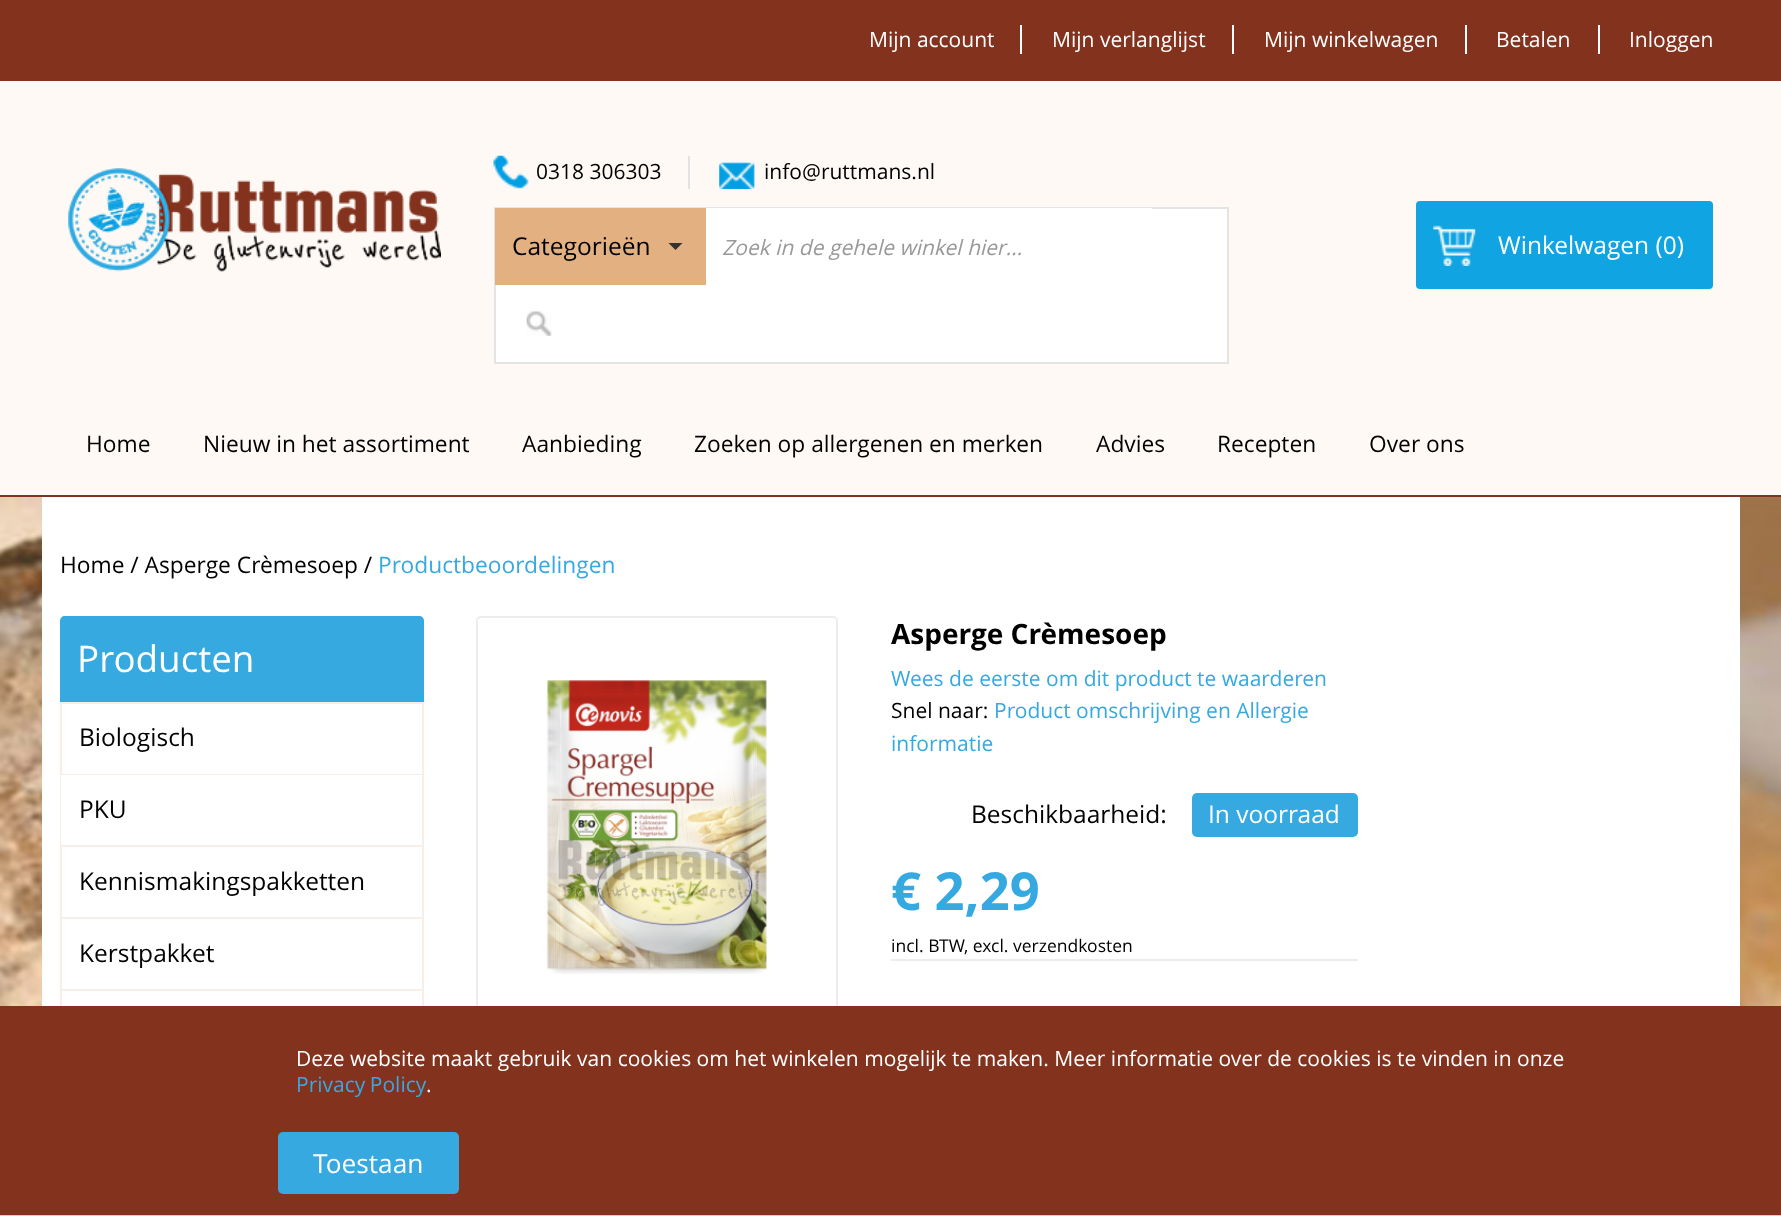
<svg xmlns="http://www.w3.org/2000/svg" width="1781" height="1216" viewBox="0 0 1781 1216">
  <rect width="100%" height="100%" fill="#83321e"/>
  <path d="M1020 25h2v29H1020z" fill="#fff"/>
  <path d="M1232 25h2v29H1232z" fill="#fff"/>
  <path d="M1465 25h2v29H1465z" fill="#fff"/>
  <path d="M1598 25h2v29H1598z" fill="#fff"/>
  <path d="M0 81h1781v414H0z" fill="#fef9f5"/>
  <image x="68" y="168" width="373" height="104" href="img/1.png"/>
  <image x="493" y="155" width="36" height="34" href="img/2.png"/>
  <path d="M688 156h2v33H688z" fill="#e2e2e2"/>
  <image x="719" y="162" width="36" height="27" href="img/3.png"/>
  <path d="M495 208h733v155H495z" fill="#fff" stroke="#e4e4e4" stroke-width="2"/>
  <path d="M495 208h211v77H495z" fill="#e3b081"/>
  <path d="M668.5 243H682.5L675.5 250Z" fill="#333"/>
  <path d="M706 208h446v1H706z" fill="#fff"/>
  <image x="526" y="311" width="26" height="25" href="img/4.png"/>
  <rect x="1416" y="201" width="297" height="88" rx="4" fill="#11a4e2"/>
  <image x="1433" y="225" width="43" height="41" href="img/5.png"/>
  <image x="0" y="497" width="1781" height="509" href="img/6.png"/>
  <path d="M42 497h1698v509H42z" fill="#fff"/>
  <path d="M65 616H419C422 616 424 618 424 621V702H60V621C60 618 62 616 65 616Z" fill="#36a9e1"/>
  <path d="M61 703h362v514H61z" fill="none" stroke="#f6eee7" stroke-width="2"/>
  <path d="M61 774h361v1H61z" fill="#f6eee7"/>
  <path d="M61 775h1v70H61z" fill="#fff"/>
  <path d="M61 845h361v2H61z" fill="#f6eee7"/>
  <path d="M61 917h361v2H61z" fill="#f6eee7"/>
  <path d="M61 989h361v2H61z" fill="#f6eee7"/>
  <rect x="477" y="617" width="360" height="415" rx="4" fill="none" stroke="#ededed" stroke-width="2"/>
  <image x="546" y="680" width="221" height="294" href="img/7.png"/>
  <path d="M891 959h467v2H891z" fill="#ededed"/>
  <rect x="1192" y="793" width="166" height="44" rx="5" fill="#36a9e1"/>
  <path d="M60 1006h778v209H60z" fill="#83321e"/>
  <path d="M0 1215h1781v1H0z" fill="#cfcfcf"/>
  <rect x="278" y="1132" width="181" height="62" rx="5" fill="#36a9e1"/>
  <g font-family="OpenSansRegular" font-size="21" fill="#fff">
    <text x="869" y="47">Mijn account</text>
    <text x="1052" y="47">Mijn verlanglijst</text>
    <text x="1264" y="47">Mijn winkelwagen</text>
    <text x="1496" y="47">Betalen</text>
    <text x="1629" y="47">Inloggen</text>
  </g>
  <g font-family="OpenSansRegular" font-size="21" fill="#000">
    <text x="536" y="179">0318 306303</text>
    <text x="764" y="179">info@ruttmans.nl</text>
  </g>
  <text x="512" y="255" font-family="OpenSansRegular" font-size="24.5" fill="#000">Categorieën</text>
  <text x="722" y="255" font-family="OpenSansRegular" font-size="21" font-style="italic" fill="#999">Zoek in de gehele winkel hier...</text>
  <text x="1498" y="254" font-family="OpenSansRegular" font-size="24.5" fill="#fff">Winkelwagen (0)</text>
  <g font-family="OpenSansRegular" font-size="22.75" fill="#000">
    <text x="86" y="452">Home</text>
    <text x="203" y="452">Nieuw in het assortiment</text>
    <text x="522" y="452">Aanbieding</text>
    <text x="694" y="452">Zoeken op allergenen en merken</text>
    <text x="1096" y="452">Advies</text>
    <text x="1217" y="452">Recepten</text>
    <text x="1369" y="452">Over ons</text>
    <text x="60" y="573">Home / Asperge Crèmesoep /</text>
  </g>
  <text x="378" y="573" font-family="OpenSansRegular" font-size="22.75" fill="#36a9e1">Productbeoordelingen</text>
  <text x="77" y="672" font-family="OpenSansRegular" font-size="36.75" fill="#fff">Producten</text>
  <g font-family="OpenSansRegular" font-size="24.5" fill="#000">
    <text x="79" y="746">Biologisch</text>
    <text x="79" y="818">PKU</text>
    <text x="79" y="890">Kennismakingspakketten</text>
    <text x="79" y="962">Kerstpakket</text>
  </g>
  <text x="891" y="644" font-family="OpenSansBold" font-size="28" font-weight="bold" fill="#000">Asperge Crèmesoep</text>
  <text x="891" y="686" font-family="OpenSansRegular" font-size="21" fill="#36a9e1">Wees de eerste om dit product te waarderen</text>
  <text x="891" y="718" font-family="OpenSansRegular" font-size="21" fill="#000">Snel naar:</text>
  <g font-family="OpenSansRegular" font-size="21" fill="#36a9e1">
    <text x="994" y="718">Product omschrijving en Allergie</text>
    <text x="891" y="751">informatie</text>
  </g>
  <text x="971" y="823" font-family="OpenSansRegular" font-size="24.5" fill="#000">Beschikbaarheid:</text>
  <text x="1208" y="823" font-family="OpenSansRegular" font-size="24.5" fill="#fff">In voorraad</text>
  <text x="891" y="910" font-family="OpenSansBold" font-size="52.5" font-weight="bold" fill="#36a9e1">€ 2,29</text>
  <text x="891" y="952" font-family="OpenSansRegular" font-size="17.5" fill="#000">incl. BTW, excl. verzendkosten</text>
  <text x="296" y="1066" font-family="OpenSansRegular" font-size="21" fill="#fff">Deze website maakt gebruik van cookies om het winkelen mogelijk te maken. Meer informatie over de cookies is te vinden in onze</text>
  <text x="296" y="1092" word-spacing="-1" font-family="OpenSansRegular" font-size="21" fill="#36a9e1">Privacy Policy</text>
  <text x="426" y="1092" font-family="OpenSansRegular" font-size="21" fill="#fff">.</text>
  <text x="313" y="1173" font-family="OpenSansRegular" font-size="26.25" fill="#fff">Toestaan</text>
</svg>
